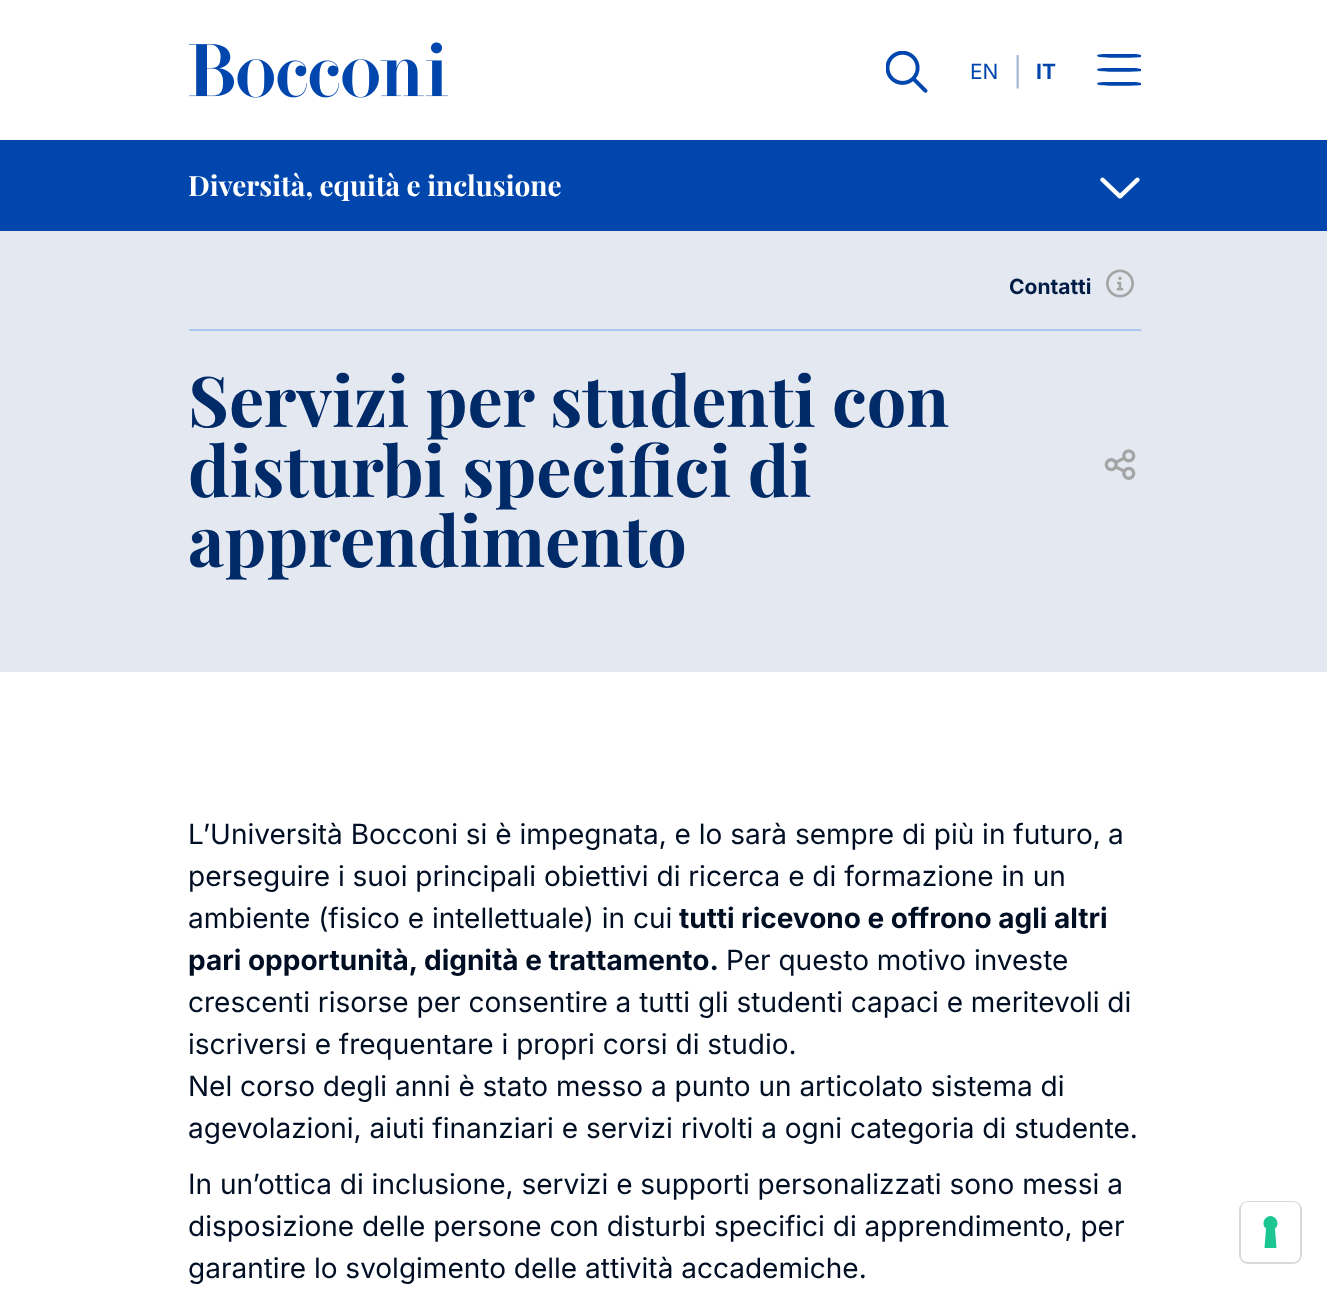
<svg xmlns="http://www.w3.org/2000/svg" width="1327" height="1289" viewBox="0 0 1327 1289">
  <rect width="100%" height="100%" fill="#fff"/>
  <image x="189" y="42" width="259" height="56" href="img/1.png"/>
  <image x="886" y="51" width="42" height="42" href="img/2.png"/>
  <path d="M1107 54H1136L1141 55V57C1138 58 1102 58 1099 57C1092 54 1106 54 1107 54ZM1107 68H1136L1141 69V71C1138 72 1102 72 1099 71C1092 68 1106 68 1107 68ZM1107 82H1136L1141 83V85C1138 86 1102 86 1099 85C1092 82 1106 82 1107 82Z" fill="#0046ad"/>
  <path d="M0 140h1327v91H0z" fill="#0046ad"/>
  <image x="1100" y="177" width="40" height="22" href="img/3.png"/>
  <path d="M0 231h1327v441H0z" fill="#e4e9f1"/>
  <path d="M189 329h952v2H189z" fill="#abc6ef"/>
  <image x="1106" y="269" width="28" height="29" href="img/4.png"/>
  <image x="1104" y="449" width="32" height="31" href="img/5.png"/>
  <rect x="1240" y="1202" width="61" height="61" rx="8" fill="none" stroke="#d9d9d9" stroke-width="2"/>
  <rect x="1241" y="1202" width="59" height="60" rx="7" fill="#fff"/>
  <path d="M1270.5 1216C1277 1216.5 1280 1224.5 1275 1228.5L1276.5 1248H1264.5L1266 1228.5C1261 1224.5 1264 1216.5 1270.5 1216Z" fill="#1cc691" fill-rule="evenodd"/>
  <text x="970" y="79" font-family="Inter" font-size="21" fill="#0046ad">EN</text>
  <text x="1013" y="82" font-family="Inter" font-size="28" fill="#a2b8d9">|</text>
  <text x="1036" y="79" font-family="Inter" font-size="21" font-weight="bold" fill="#0046ad">IT</text>
  <text x="188" y="196" font-family="Playfair Display" font-size="28" font-weight="bold" fill="#fff">Diversità, equità e inclusione</text>
  <text x="1009" y="294" font-family="Inter" font-size="21" font-weight="bold" fill="#001c45">Contatti</text>
  <g font-family="Playfair Display" font-size="70" font-weight="bold" fill="#002a68">
    <text x="188" y="427">Servizi per studenti con</text>
    <text x="188" y="497">disturbi specifici di</text>
    <text x="188" y="567">apprendimento</text>
  </g>
  <g font-family="Inter" font-size="28" fill="#000e23">
    <text x="188" y="844">L’Università Bocconi si è impegnata, e lo sarà sempre di più in futuro,</text>
    <text x="1108" y="844">a</text>
    <text x="188" y="886">perseguire i suoi principali obiettivi di ricerca e di formazione in un</text>
    <text x="188" y="928">ambiente (fisico e intellettuale) in cui</text>
  </g>
  <g font-family="Inter" font-size="28" font-weight="bold" fill="#000e23">
    <text x="679" y="928">tutti ricevono e offrono agli altri</text>
    <text x="188" y="970">pari opportunità, dignità e trattamento.</text>
  </g>
  <g font-family="Inter" font-size="28" fill="#000e23">
    <text x="726" y="970">Per questo motivo investe</text>
    <text x="188" y="1012">crescenti risorse per consentire a tutti gli studenti capaci e meritevoli di</text>
    <text x="188" y="1054">iscriversi e frequentare i propri corsi di studio.</text>
    <text x="188" y="1096">Nel corso degli anni è stato messo a punto un articolato sistema di</text>
    <text x="188" y="1138">agevolazioni, aiuti finanziari e servizi rivolti a ogni categoria di studente.</text>
    <text x="188" y="1194">In un’ottica di inclusione, servizi e supporti personalizzati sono messi a</text>
    <text x="188" y="1236">disposizione delle persone con disturbi specifici di apprendimento, per</text>
    <text x="188" y="1278">garantire lo svolgimento delle attività accademiche.</text>
  </g>
</svg>
